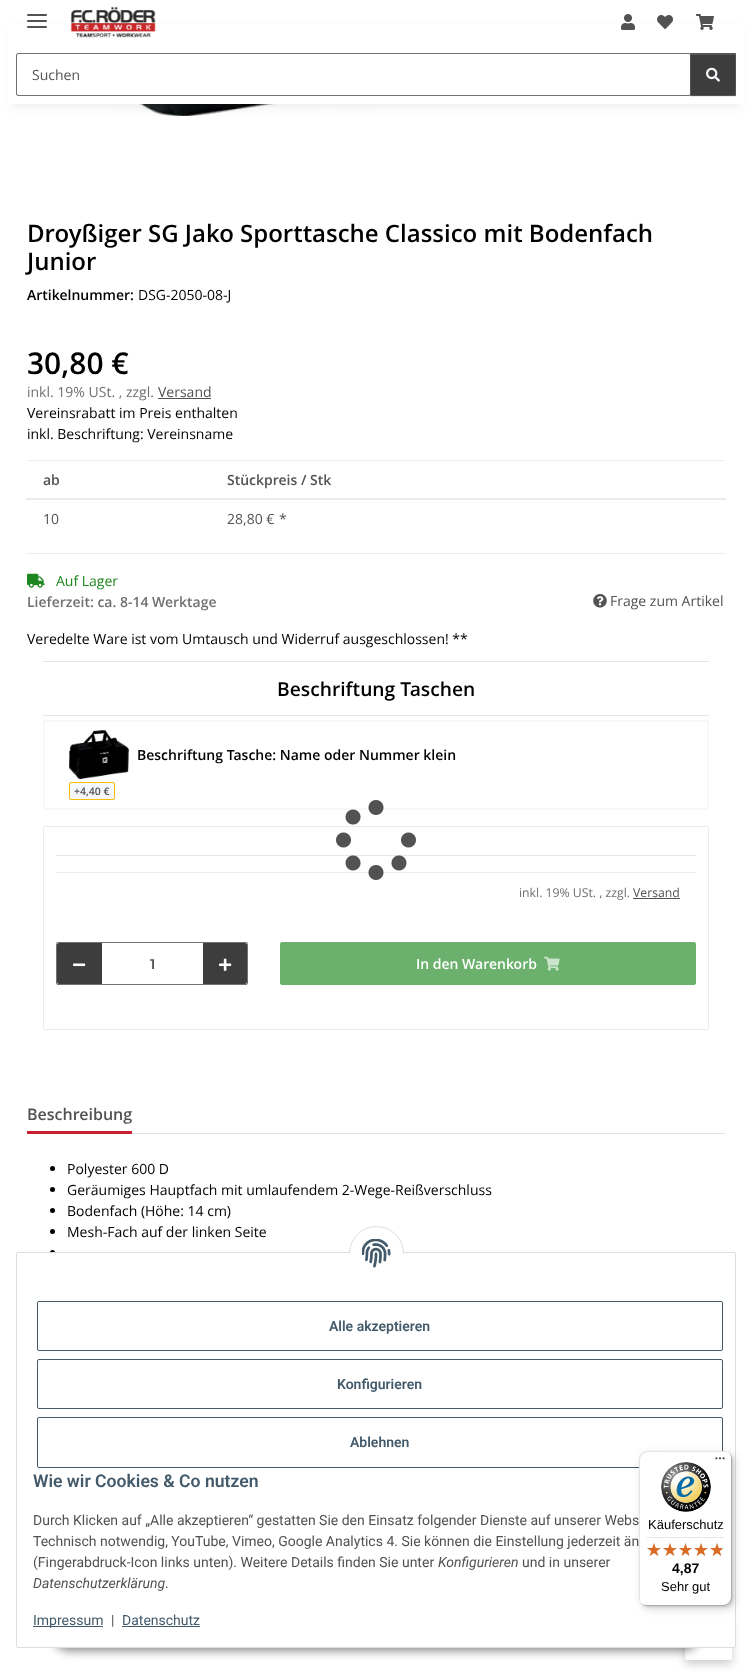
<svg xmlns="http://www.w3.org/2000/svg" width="752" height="1680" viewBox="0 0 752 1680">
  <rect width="100%" height="100%" fill="#fff"/>
  <image x="46" y="104" width="664" height="12" href="img/6.png"/>
  <path d="M12 28h728v80H12z" fill="#0000000f" filter="blur(4.5px)"/>
  <path d="M8 24h736v80H8z" fill="#fff"/>
  <rect x="27" y="20" width="20" height="2" rx="1" fill="#525252"/>
  <rect x="27" y="14" width="20" height="2" rx="1" fill="#525252"/>
  <rect x="27" y="26" width="20" height="2" rx="1" fill="#525252"/>
  <image x="70" y="6" width="86" height="32" href="img/1.png"/>
  <image x="621" y="14" width="14" height="16" href="img/2.png"/>
  <image x="657" y="15" width="16" height="14" href="img/3.png"/>
  <image x="696" y="14" width="18" height="16" href="img/4.png"/>
  <rect x="16.5" y="53.5" width="674" height="42" rx="1.5" fill="none" stroke="#707070"/>
  <path d="M690 54h46v43H690z" fill="#00000012" filter="blur(0.5px)"/>
  <path d="M691 55h44v40H691z" fill="#3d3d3d"/>
  <path d="M691 54h44v1H691z" fill="#5a5a5a"/>
  <path d="M690.5 53.5h45v42H690.5z" fill="none" stroke="#525252"/>
  <image x="706" y="67" width="14" height="15" href="img/5.png"/>
  <path d="M158 398h53v1H158z" fill="#525252"/>
  <path d="M27 460h698v1H27z" fill="#ebebeb"/>
  <path d="M26 498h700v2H26z" fill="#ebebeb"/>
  <path d="M27 553h698v1H27z" fill="#ebebeb"/>
  <image x="27" y="573" width="18" height="15" href="img/7.png"/>
  <image x="593" y="594" width="14" height="14" href="img/8.png"/>
  <path d="M43 661h666v1H43z" fill="#e6e6e6"/>
  <path d="M43 715h666v1H43z" fill="#e6e6e6"/>
  <path d="M44 721h664v88H44z" fill="none" stroke="#f8f8f8" stroke-width="2"/>
  <image x="69" y="730" width="60" height="49" href="img/9.png"/>
  <rect x="69.5" y="782.5" width="45" height="17" rx="1.5" fill="#f5f7fa" stroke="#f8bf00"/>
  <path d="M43.5 826.5h665v203H43.5z" fill="none" stroke="#ebebeb"/>
  <path d="M56 855h640v1H56z" fill="#e6e6e6"/>
  <path d="M56 872h640v1H56z" fill="#ebebeb"/>
  <image x="336" y="800" width="80" height="80" href="img/10.png"/>
  <path d="M633 898h47v1H633z" fill="#525252"/>
  <rect x="56.5" y="942.5" width="191" height="42" rx="1.5" fill="none" stroke="#707070"/>
  <path d="M59 943H102V984H59C58 984 57 983 57 982V945C57 944 58 943 59 943Z" fill="#3d3d3d"/>
  <image x="73" y="963" width="13" height="4" href="img/11.png"/>
  <path d="M203 943H245C246 943 247 944 247 945V982C247 983 246 984 245 984H203Z" fill="#3d3d3d"/>
  <image x="219" y="958" width="13" height="13" href="img/12.png"/>
  <rect x="280.5" y="942.5" width="415" height="42" rx="1.5" fill="#6bb16d" stroke="#6bb16d"/>
  <image x="544" y="956" width="16" height="15" href="img/13.png"/>
  <path d="M132 1133h593v1H132z" fill="#dee2e6"/>
  <path d="M27 1131h105v3H27z" fill="#ca1f30"/>
  <circle cx="52.5" cy="1168.5" r="2.5" fill="#000"/>
  <circle cx="52.5" cy="1189.5" r="2.5" fill="#000"/>
  <circle cx="52.5" cy="1210.5" r="2.5" fill="#000"/>
  <circle cx="52.5" cy="1231.5" r="2.5" fill="#000"/>
  <circle cx="52.5" cy="1252.5" r="2.5" fill="#000"/>
  <rect x="685" y="1620" width="47" height="44" rx="2" fill="#00000033" filter="blur(4px)"/>
  <rect x="685" y="1616" width="47" height="44" rx="2" fill="#fff"/>
  <rect x="53" y="1619" width="646" height="32" rx="16" fill="#00000073" filter="blur(5px)"/>
  <rect x="16.5" y="1252.5" width="719" height="395" rx="1.5" fill="#fff" stroke="#ddd"/>
  <circle cx="376.5" cy="1253.5" r="27" fill="#fff" stroke="#ddd"/>
  <path d="M349 1254h55v27H349z" fill="#fff"/>
  <image x="362" y="1239" width="29" height="29" href="img/14.png"/>
  <rect x="37.5" y="1301.5" width="685" height="49" rx="1.5" fill="none" stroke="#435a6b"/>
  <rect x="37.5" y="1359.5" width="685" height="49" rx="1.5" fill="none" stroke="#435a6b"/>
  <rect x="37.5" y="1417.5" width="685" height="50" rx="1.5" fill="none" stroke="#435a6b"/>
  <path d="M33 1626h70v1H33z" fill="#435a6b"/>
  <path d="M122 1626h78v1H122z" fill="#435a6b"/>
  <rect x="642" y="1454" width="93" height="155" rx="8" fill="#00000026" filter="blur(4px)"/>
  <rect x="640" y="1452" width="93" height="155" rx="8" fill="#00000026" filter="blur(1px)"/>
  <rect x="639" y="1451" width="93" height="155" rx="8" fill="#fff"/>
  <path d="M648 1452H725C727 1452 729 1453 731 1455C729 1453 727 1451 724 1451H647C643 1451 639 1455 639 1459V1598C639 1601 641 1603 643 1605C641 1603 640 1601 640 1599V1460C640 1456 644 1452 648 1452Z" fill="#e5e5e5"/>
  <path d="M640 1602C642 1604 644 1606 647 1606H724C728 1606 732 1602 732 1598V1459C732 1456 730 1454 728 1452C730 1454 731 1456 731 1458V1597C731 1601 727 1605 723 1605H646C644 1605 642 1604 640 1602Z" fill="#ccc"/>
  <path d="M641 1603C642 1605 645 1606 647 1606H724C728 1606 732 1602 732 1598V1459C732 1457 731 1454 729 1453C730 1454 731 1456 731 1458V1597C731 1602 728 1605 723 1605H646C644 1605 642 1604 641 1603Z" fill="#32323233"/>
  <image x="715" y="1457" width="10" height="3" href="img/15.png"/>
  <path d="M724 1606C728.5 1606 732 1602.5 732 1598C732 1602 728 1606 724 1606Z" fill="#ffffff4d"/>
  <image x="661" y="1462" width="50" height="50" href="img/16.png"/>
  <path d="M647 1537h77v1H647z" fill="#e5e5e5"/>
  <image x="647" y="1543" width="14" height="13" href="img/17.png"/>
  <image x="663" y="1543" width="14" height="13" href="img/17.png"/>
  <image x="679" y="1543" width="13" height="13" href="img/18.png"/>
  <image x="694" y="1543" width="14" height="13" href="img/17.png"/>
  <image x="710" y="1543" width="14" height="13" href="img/17.png"/>
  <image x="647" y="1543" width="14" height="13" href="img/19.png"/>
  <image x="663" y="1543" width="14" height="13" href="img/19.png"/>
  <image x="679" y="1543" width="13" height="13" href="img/20.png"/>
  <image x="694" y="1543" width="14" height="13" href="img/19.png"/>
  <image x="710" y="1543" width="12" height="13" href="img/21.png"/>
  <text x="32" y="80" font-family="Open Sans" font-size="14" fill="#525252">Suchen</text>
  <g font-family="Open Sans" font-size="24" font-weight="600" fill="#000">
    <text x="27" y="242">Droyßiger SG Jako Sporttasche Classico mit Bodenfach</text>
    <text x="27" y="270">Junior</text>
  </g>
  <text x="27" y="300" font-family="Open Sans" font-size="14" font-weight="600" fill="#000">Artikelnummer:</text>
  <text x="138" y="300" font-family="Open Sans" font-size="14" fill="#000">DSG-2050-08-J</text>
  <text x="27" y="374" font-family="Open Sans" font-size="30" font-weight="600" fill="#000">30,80 €</text>
  <text x="27" y="397" font-family="Open Sans" font-size="14" fill="#707070">inkl. 19% USt. , zzgl.</text>
  <text x="158" y="397" font-family="Open Sans" font-size="14" fill="#525252">Versand</text>
  <g font-family="Open Sans" font-size="14" fill="#000">
    <text x="27" y="418">Vereinsrabatt im Preis enthalten</text>
    <text x="27" y="439">inkl. Beschriftung: Vereinsname</text>
  </g>
  <g font-family="Open Sans" font-size="14" font-weight="600" fill="#525252">
    <text x="43" y="485">ab</text>
    <text x="227" y="485">Stückpreis / Stk</text>
  </g>
  <g font-family="Open Sans" font-size="14" fill="#525252">
    <text x="43" y="524">10</text>
    <text x="227" y="524">28,80 €</text>
    <text x="279" y="524">*</text>
  </g>
  <text x="56" y="586" font-family="Open Sans" font-size="14" fill="#1c871e">Auf Lager</text>
  <text x="27" y="607" font-family="Open Sans" font-size="14" font-weight="600" fill="#707070">Lieferzeit: ca. 8-14 Werktage</text>
  <text x="610" y="606" font-family="Open Sans" font-size="14" fill="#525252">Frage zum Artikel</text>
  <text x="27" y="644" font-family="Open Sans" font-size="14" fill="#000">Veredelte Ware ist vom Umtausch und Widerruf ausgeschlossen! **</text>
  <text x="277" y="696" font-family="Open Sans" font-size="19.25" font-weight="600" fill="#000">Beschriftung Taschen</text>
  <text x="137" y="760" font-family="Open Sans" font-size="14" font-weight="600" fill="#000">Beschriftung Tasche: Name oder Nummer klein</text>
  <text x="74" y="795" font-family="Open Sans" font-size="10.5" font-weight="600" fill="#525252">+4,40 €</text>
  <text x="519" y="897" font-family="Open Sans" font-size="12.25" fill="#707070">inkl. 19% USt. , zzgl.</text>
  <text x="633" y="897" font-family="Open Sans" font-size="12.25" fill="#525252">Versand</text>
  <text x="150" y="969" font-family="Montserrat" font-size="14" font-weight="600" fill="#525252">1</text>
  <text x="416" y="969" font-family="Open Sans" font-size="14" font-weight="600" fill="#fff">In den Warenkorb</text>
  <text x="27" y="1120" font-family="Open Sans" font-size="16" font-weight="600" fill="#525252">Beschreibung</text>
  <g font-family="Open Sans" font-size="14" fill="#000">
    <text x="67" y="1174">Polyester 600 D</text>
    <text x="67" y="1195">Geräumiges Hauptfach mit umlaufendem 2-Wege-Reißverschluss</text>
    <text x="67" y="1216">Bodenfach (Höhe: 14 cm)</text>
    <text x="67" y="1237">Mesh-Fach auf der linken Seite</text>
  </g>
  <g font-family="Roboto" font-size="14" font-weight="600" fill="#435a6b">
    <text x="329" y="1331">Alle akzeptieren</text>
    <text x="337" y="1389">Konfigurieren</text>
    <text x="350" y="1447">Ablehnen</text>
  </g>
  <text x="33" y="1487" font-family="Roboto" font-size="17.6" font-weight="600" fill="#435a6b">Wie wir Cookies &amp; Co nutzen</text>
  <g font-family="Roboto" font-size="14" fill="#525252">
    <text x="33" y="1525">Durch Klicken auf „Alle akzeptieren“ gestatten Sie den Einsatz folgender Dienste auf unserer Webs</text>
    <text x="33" y="1546">Technisch notwendig, YouTube, Vimeo, Google Analytics 4. Sie können die Einstellung jederzeit än</text>
    <text x="33" y="1567">(Fingerabdruck-Icon links unten). Weitere Details finden Sie unter</text>
  </g>
  <text x="438" y="1567" font-family="Roboto" font-size="14" font-style="italic" fill="#525252">Konfigurieren</text>
  <text x="522" y="1567" font-family="Roboto" font-size="14" fill="#525252">und in unserer</text>
  <text x="33" y="1588" font-family="Roboto" font-size="14" font-style="italic" fill="#525252">Datenschutzerklärung</text>
  <text x="165" y="1588" font-family="Roboto" font-size="14" fill="#525252">.</text>
  <text x="33" y="1625" font-family="Roboto" font-size="14" fill="#435a6b">Impressum</text>
  <text x="111" y="1625" font-family="Roboto" font-size="14" fill="#525252">|</text>
  <text x="122" y="1625" font-family="Roboto" font-size="14" fill="#435a6b">Datenschutz</text>
  <text x="648" y="1529" font-family="Liberation Sans" font-size="13" fill="#000">Käuferschutz</text>
  <text x="672" y="1573" font-family="Liberation Sans" font-size="14" font-weight="bold" fill="#000">4,87</text>
  <text x="661" y="1591" font-family="Liberation Sans" font-size="13" fill="#000">Sehr gut</text>
</svg>
